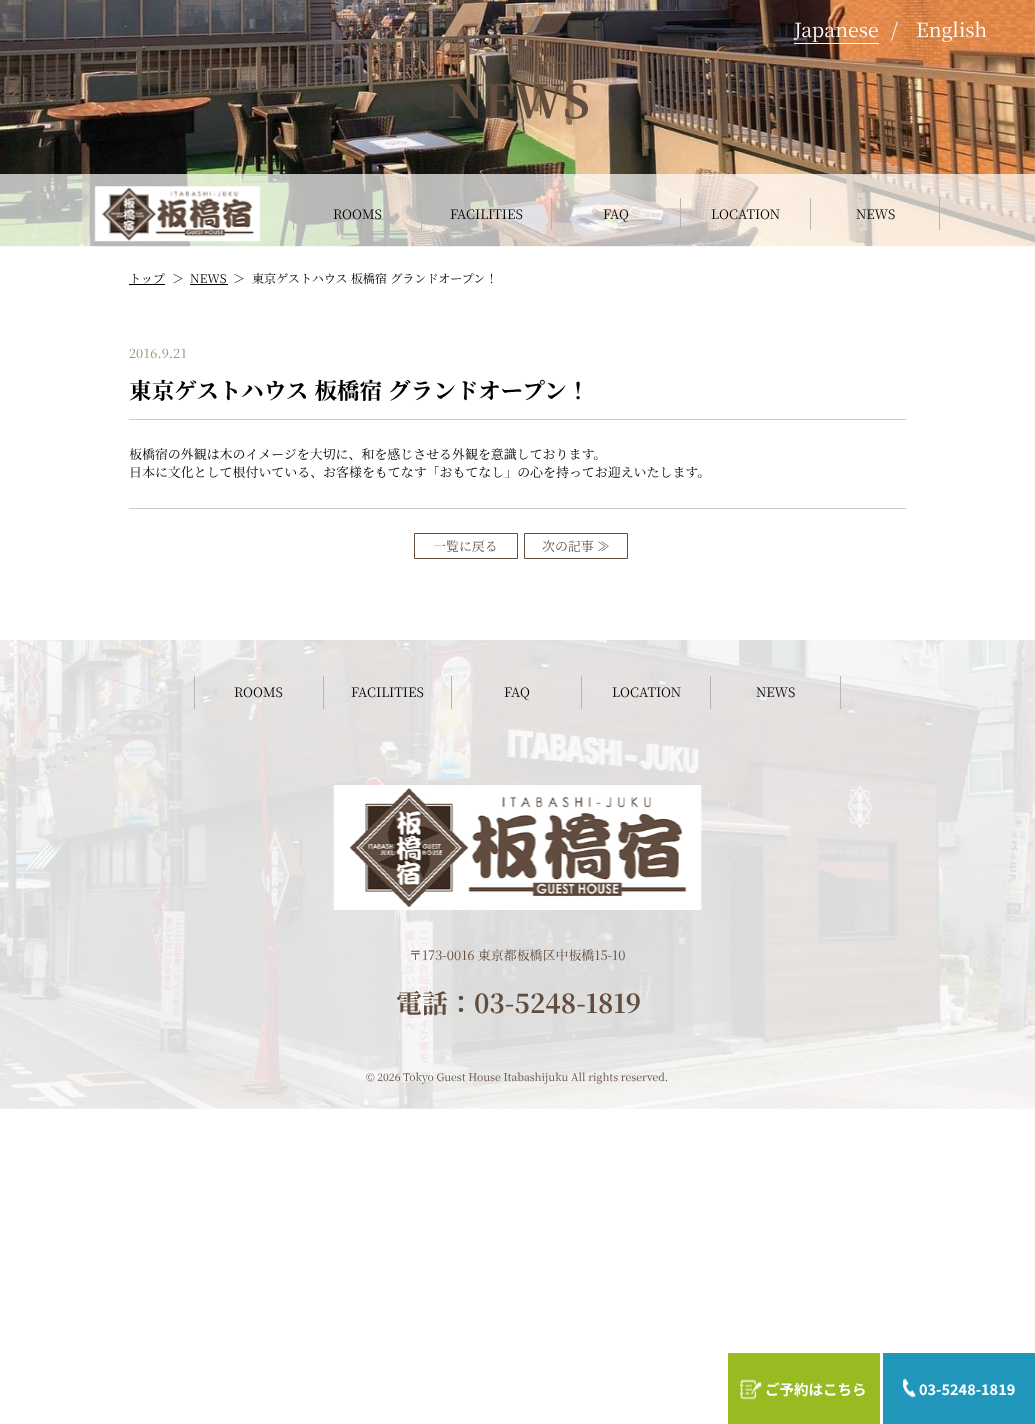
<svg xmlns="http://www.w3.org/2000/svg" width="1035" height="1424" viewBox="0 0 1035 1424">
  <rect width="100%" height="100%" fill="#fff"/>
  <image x="0" y="0" width="1035" height="247" href="img/1.png"/>
  <path d="M794 43h85v1H794z" fill="#fff"/>
  <path d="M0 174h1035v72H0z" fill="#ffffffb3"/>
  <path d="M293 198h1v32H293z" fill="#b5b5b5"/>
  <image x="94" y="186" width="167" height="56" href="img/2.png"/>
  <path d="M421 198h1v32H421z" fill="#b5b5b5"/>
  <path d="M551 198h1v32H551z" fill="#b5b5b5"/>
  <path d="M680 198h1v32H680z" fill="#b5b5b5"/>
  <path d="M810 198h1v32H810z" fill="#b5b5b5"/>
  <path d="M939 198h1v32H939z" fill="#b5b5b5"/>
  <path d="M129 284h36v1H129z" fill="#000"/>
  <path d="M190 284h38v1H190z" fill="#000"/>
  <path d="M129 419h777v1H129z" fill="#ccc"/>
  <path d="M129 508h777v1H129z" fill="#ccc"/>
  <path d="M414.5 533.5h103v25H414.5z" fill="none" stroke="#624d3f"/>
  <path d="M524.5 533.5h103v25H524.5z" fill="none" stroke="#624d3f"/>
  <image x="0" y="640" width="1035" height="469" href="img/3.png"/>
  <path d="M323 676h1v33H323z" fill="#b5b5b5"/>
  <path d="M194 676h1v33H194z" fill="#b5b5b5"/>
  <path d="M451 676h1v33H451z" fill="#b5b5b5"/>
  <path d="M581 676h1v33H581z" fill="#b5b5b5"/>
  <path d="M710 676h1v33H710z" fill="#b5b5b5"/>
  <path d="M840 676h1v33H840z" fill="#b5b5b5"/>
  <image x="333" y="785" width="369" height="125" href="img/4.png"/>
  <path d="M728 1353h152v71H728z" fill="#97bb20"/>
  <image x="740" y="1379" width="22" height="21" href="img/5.png"/>
  <path d="M883 1353h152v71H883z" fill="#2097bb"/>
  <image x="903" y="1378" width="13" height="20" href="img/6.png"/>
  <g font-family="Noto Serif JP" font-size="19.5" fill="#fff">
    <text x="794" y="37">Japanese</text>
    <text x="891" y="37">/</text>
    <text x="916" y="37">English</text>
  </g>
  <text x="447" y="118" font-family="Noto Serif JP" font-size="45.5" font-weight="bold" fill="#624d3f">NEWS</text>
  <g font-family="Noto Serif JP" font-size="12.95" fill="#000">
    <text x="333" y="219">ROOMS</text>
    <text x="450" y="219">FACILITIES</text>
    <text x="603" y="219">FAQ</text>
    <text x="711" y="219">LOCATION</text>
    <text x="856" y="219">NEWS</text>
  </g>
  <g font-family="Noto Serif JP" font-size="12.1" fill="#000">
    <text x="129" y="283">トップ</text>
    <text x="172" y="283">＞</text>
    <text x="190" y="283">NEWS</text>
    <text x="233" y="283">＞</text>
    <text x="252" y="283">東京ゲストハウス 板橋宿 グランドオープン！</text>
  </g>
  <text x="129" y="358" font-family="Noto Serif JP" font-size="12.95" fill="#a68d72">2016.9.21</text>
  <text x="129" y="399" font-family="Noto Serif JP" font-size="22.7" font-weight="bold" fill="#000">東京ゲストハウス 板橋宿 グランドオープン！</text>
  <g font-family="Noto Serif JP" font-size="12.95" fill="#000">
    <text x="129" y="459">板橋宿の外観は木のイメージを大切に、和を感じさせる外観を意識しております。</text>
    <text x="129" y="477">日本に文化として根付いている、お客様をもてなす「おもてなし」の心を持ってお迎えいたします。</text>
  </g>
  <g font-family="Noto Serif JP" font-size="12.95" fill="#624d3f">
    <text x="433" y="551">一覧に戻る</text>
    <text x="542" y="551">次の記事 ≫</text>
  </g>
  <g font-family="Noto Serif JP" font-size="12.95" fill="#000">
    <text x="234" y="697">ROOMS</text>
    <text x="351" y="697">FACILITIES</text>
    <text x="504" y="697">FAQ</text>
    <text x="612" y="697">LOCATION</text>
    <text x="756" y="697">NEWS</text>
  </g>
  <text x="409" y="960" font-family="Noto Serif JP" font-size="12.95" fill="#624d3f">〒173-0016 東京都板橋区中板橋15-10</text>
  <text x="396" y="1013" font-family="Noto Serif JP" font-size="26" font-weight="bold" fill="#624d3f">電話：03-5248-1819</text>
  <text x="366" y="1081" font-family="Noto Serif JP" font-size="10.5" fill="#624d3f">© 2026 Tokyo Guest House Itabashijuku All rights reserved.</text>
  <g font-family="Noto Sans JP" font-size="14.5" font-weight="bold" fill="#fff">
    <text x="765" y="1395">ご予約はこちら</text>
    <text x="919" y="1395">03-5248-1819</text>
  </g>
</svg>
